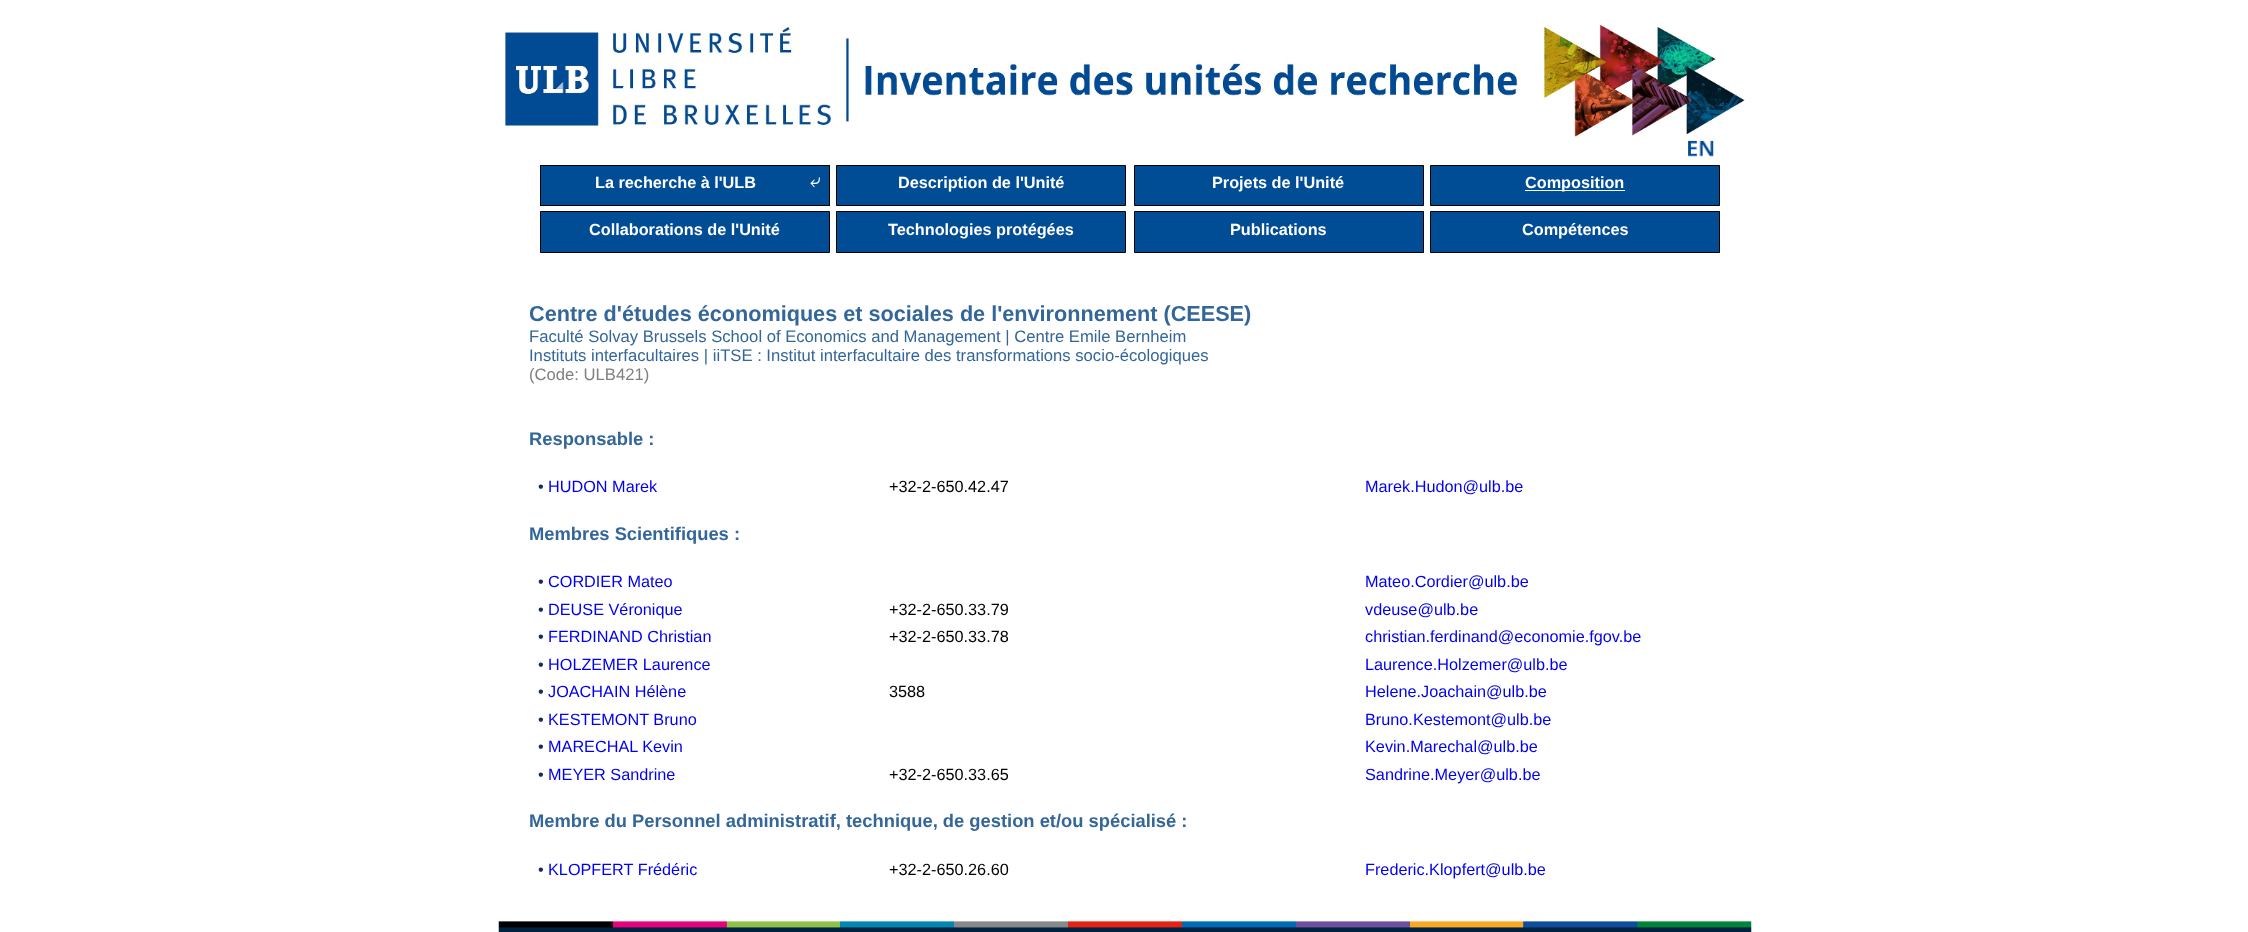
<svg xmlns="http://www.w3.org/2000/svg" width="2248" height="932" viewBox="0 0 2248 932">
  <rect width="100%" height="100%" fill="#fff"/>
  <image x="504" y="25" width="1241" height="112" href="img/1.png"/>
  <image x="1688" y="140" width="26" height="17" href="img/2.png"/>
  <path d="M541 166h288v39H541z" fill="#004d95"/>
  <path d="M540 165h290v1H540z" fill="#000"/>
  <path d="M540 205h270v1H540z" fill="#000"/>
  <path d="M540 165h1v41H540z" fill="#000"/>
  <path d="M829 165h1v41H829z" fill="#000"/>
  <path d="M810 205h20v1H810z" fill="#000"/>
  <path d="M836.5 165.5h289v40H836.5z" fill="#004d95" stroke="#000"/>
  <path d="M1134.5 165.5h289v40H1134.5z" fill="#004d95" stroke="#000"/>
  <path d="M1430.5 165.5h289v40H1430.5z" fill="#004d95" stroke="#000"/>
  <path d="M1525 190h100v1H1525z" fill="#fff"/>
  <path d="M540.5 211.5h289v41H540.5z" fill="#004d95" stroke="#000"/>
  <path d="M836.5 211.5h289v41H836.5z" fill="#004d95" stroke="#000"/>
  <path d="M1134.5 211.5h289v41H1134.5z" fill="#004d95" stroke="#000"/>
  <path d="M1430.5 211.5h289v41H1430.5z" fill="#004d95" stroke="#000"/>
  <image x="498" y="921" width="1254" height="11" href="img/3.png"/>
  <text x="595" y="188" font-family="Liberation Sans" font-size="16.25" font-weight="bold" fill="#fff">La recherche à l'ULB</text>
  <text x="810" y="187" font-family="FreeSerif" font-size="19" fill="#fff">⤶</text>
  <g font-family="Liberation Sans" font-size="16.25" font-weight="bold" fill="#fff">
    <text x="898" y="188">Description de l'Unité</text>
    <text x="1212" y="188">Projets de l'Unité</text>
    <text x="1525" y="188">Composition</text>
    <text x="589" y="235">Collaborations de l'Unité</text>
    <text x="888" y="235">Technologies protégées</text>
    <text x="1230" y="235">Publications</text>
    <text x="1522" y="235">Compétences</text>
  </g>
  <text x="529" y="321" font-family="Liberation Sans" font-size="21.65" font-weight="bold" fill="#369">Centre d'études économiques et sociales de l'environnement (CEESE)</text>
  <g font-family="Liberation Sans" font-size="16.65" fill="#369">
    <text x="529" y="342">Faculté Solvay Brussels School of Economics and Management | Centre Emile Bernheim</text>
    <text x="529" y="361">Instituts interfacultaires | iiTSE : Institut interfacultaire des transformations socio-écologiques</text>
  </g>
  <text x="529" y="380" font-family="Liberation Sans" font-size="16.65" fill="#808080">(Code: ULB421)</text>
  <text x="529" y="445" font-family="Liberation Sans" font-size="18.35" font-weight="bold" fill="#369">Responsable :</text>
  <text x="538" y="492" font-family="Liberation Sans" font-size="16.25" fill="#16295d">•</text>
  <text x="548" y="492" font-family="Liberation Sans" font-size="16.25" fill="#00e">HUDON Marek</text>
  <text x="889" y="492" font-family="Liberation Sans" font-size="16.25" fill="#000">+32-2-650.42.47</text>
  <text x="1365" y="492" font-family="Liberation Sans" font-size="16.25" fill="#00e">Marek.Hudon@ulb.be</text>
  <text x="529" y="540" font-family="Liberation Sans" font-size="18.35" font-weight="bold" fill="#369">Membres Scientifiques :</text>
  <text x="538" y="587" font-family="Liberation Sans" font-size="16.25" fill="#16295d">•</text>
  <g font-family="Liberation Sans" font-size="16.25" fill="#00e">
    <text x="548" y="587">CORDIER Mateo</text>
    <text x="1365" y="587">Mateo.Cordier@ulb.be</text>
  </g>
  <text x="538" y="615" font-family="Liberation Sans" font-size="16.25" fill="#16295d">•</text>
  <text x="548" y="615" font-family="Liberation Sans" font-size="16.25" fill="#00e">DEUSE Véronique</text>
  <text x="889" y="615" font-family="Liberation Sans" font-size="16.25" fill="#000">+32-2-650.33.79</text>
  <text x="1365" y="615" font-family="Liberation Sans" font-size="16.25" fill="#00e">vdeuse@ulb.be</text>
  <text x="538" y="642" font-family="Liberation Sans" font-size="16.25" fill="#16295d">•</text>
  <text x="548" y="642" font-family="Liberation Sans" font-size="16.25" fill="#00e">FERDINAND Christian</text>
  <text x="889" y="642" font-family="Liberation Sans" font-size="16.25" fill="#000">+32-2-650.33.78</text>
  <text x="1365" y="642" font-family="Liberation Sans" font-size="16.25" fill="#00e">christian.ferdinand@economie.fgov.be</text>
  <text x="538" y="670" font-family="Liberation Sans" font-size="16.25" fill="#16295d">•</text>
  <g font-family="Liberation Sans" font-size="16.25" fill="#00e">
    <text x="548" y="670">HOLZEMER Laurence</text>
    <text x="1365" y="670">Laurence.Holzemer@ulb.be</text>
  </g>
  <text x="538" y="697" font-family="Liberation Sans" font-size="16.25" fill="#16295d">•</text>
  <text x="548" y="697" font-family="Liberation Sans" font-size="16.25" fill="#00e">JOACHAIN Hélène</text>
  <text x="889" y="697" font-family="Liberation Sans" font-size="16.25" fill="#000">3588</text>
  <text x="1365" y="697" font-family="Liberation Sans" font-size="16.25" fill="#00e">Helene.Joachain@ulb.be</text>
  <text x="538" y="725" font-family="Liberation Sans" font-size="16.25" fill="#16295d">•</text>
  <g font-family="Liberation Sans" font-size="16.25" fill="#00e">
    <text x="548" y="725">KESTEMONT Bruno</text>
    <text x="1365" y="725">Bruno.Kestemont@ulb.be</text>
  </g>
  <text x="538" y="752" font-family="Liberation Sans" font-size="16.25" fill="#16295d">•</text>
  <g font-family="Liberation Sans" font-size="16.25" fill="#00e">
    <text x="548" y="752">MARECHAL Kevin</text>
    <text x="1365" y="752">Kevin.Marechal@ulb.be</text>
  </g>
  <text x="538" y="780" font-family="Liberation Sans" font-size="16.25" fill="#16295d">•</text>
  <text x="548" y="780" font-family="Liberation Sans" font-size="16.25" fill="#00e">MEYER Sandrine</text>
  <text x="889" y="780" font-family="Liberation Sans" font-size="16.25" fill="#000">+32-2-650.33.65</text>
  <text x="1365" y="780" font-family="Liberation Sans" font-size="16.25" fill="#00e">Sandrine.Meyer@ulb.be</text>
  <text x="529" y="827" font-family="Liberation Sans" font-size="18.35" font-weight="bold" fill="#369">Membre du Personnel administratif, technique, de gestion et/ou spécialisé :</text>
  <text x="538" y="875" font-family="Liberation Sans" font-size="16.25" fill="#16295d">•</text>
  <text x="548" y="875" font-family="Liberation Sans" font-size="16.25" fill="#00e">KLOPFERT Frédéric</text>
  <text x="889" y="875" font-family="Liberation Sans" font-size="16.25" fill="#000">+32-2-650.26.60</text>
  <text x="1365" y="875" font-family="Liberation Sans" font-size="16.25" fill="#00e">Frederic.Klopfert@ulb.be</text>
</svg>
